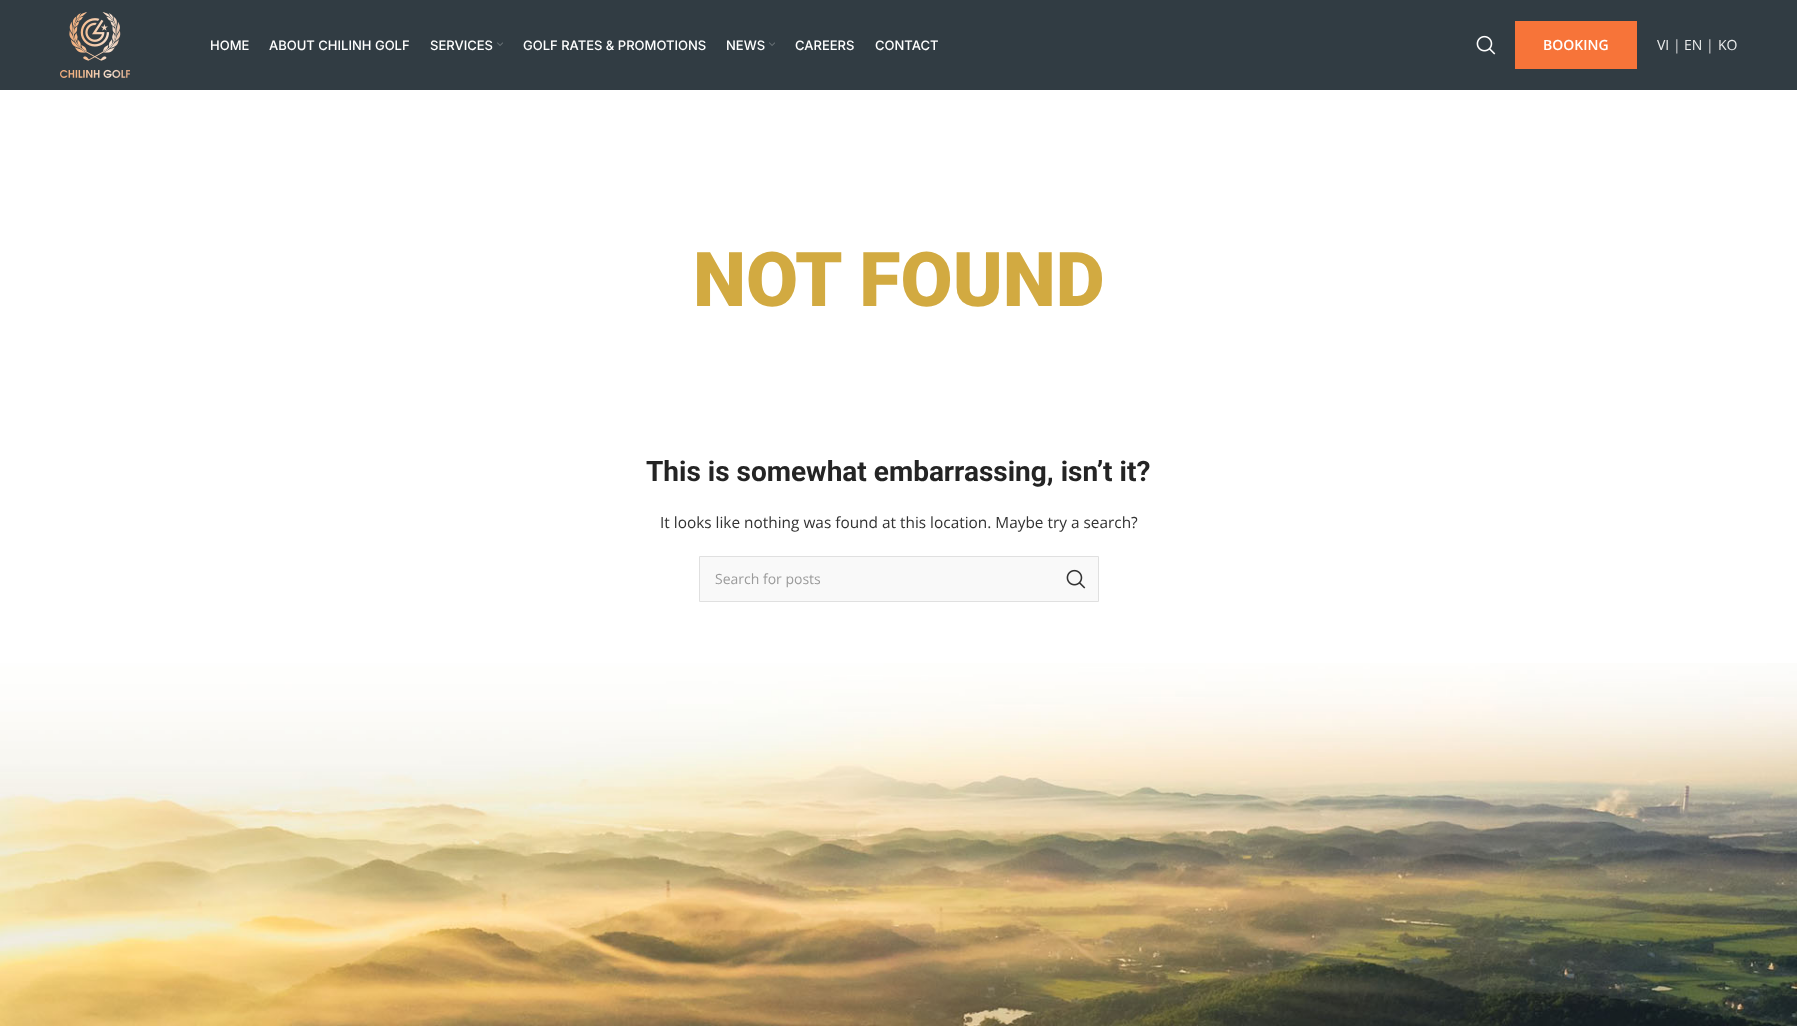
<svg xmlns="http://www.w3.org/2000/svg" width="1797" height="1026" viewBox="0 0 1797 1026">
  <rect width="100%" height="100%" fill="#fff"/>
  <path d="M0 0h1797v90H0z" fill="#313c43"/>
  <image x="60" y="12" width="70" height="66" href="img/1.png"/>
  <image x="497" y="42" width="6" height="4" href="img/2.png"/>
  <image x="769" y="42" width="6" height="4" href="img/2.png"/>
  <image x="1476" y="35" width="20" height="20" href="img/3.png"/>
  <path d="M1515 21h122v48H1515z" fill="#f77439"/>
  <path d="M699.5 556.5h399v45H699.5z" fill="#f9f9f9" stroke="#e0e0e0"/>
  <image x="1066" y="569" width="20" height="20" href="img/4.png"/>
  <image x="0" y="663" width="1797" height="363" href="img/5.png"/>
  <g font-family="Inter" font-size="13" font-weight="500" fill="#fff">
    <text x="210" y="50">HOME</text>
    <text x="269" y="50">ABOUT CHILINH GOLF</text>
    <text x="430" y="50">SERVICES</text>
    <text x="523" y="50">GOLF RATES &amp; PROMOTIONS</text>
    <text x="726" y="50">NEWS</text>
    <text x="795" y="50">CAREERS</text>
    <text x="875" y="50">CONTACT</text>
  </g>
  <text x="1543" y="50" font-family="Open Sans" font-size="14" font-weight="600" fill="#fff">BOOKING</text>
  <text x="1657" y="50" font-family="Open Sans" font-size="14" fill="#eaecec">VI</text>
  <text x="1673" y="50" font-family="Open Sans" font-size="14" fill="#d6d8d9">|</text>
  <text x="1684" y="50" font-family="Open Sans" font-size="14" fill="#eaecec">EN</text>
  <text x="1706" y="50" font-family="Open Sans" font-size="14" fill="#d6d8d9">|</text>
  <text x="1718" y="50" font-family="Open Sans" font-size="14" fill="#eaecec">KO</text>
  <text x="693" y="306" font-family="Roboto" font-size="75.5" font-weight="900" fill="#d2aa41">NOT FOUND</text>
  <text x="646" y="481" font-family="Roboto" font-size="28" font-weight="bold" fill="#242424">This is somewhat embarrassing, isn’t it?</text>
  <text x="660" y="528" font-family="Open Sans" font-size="15.4" fill="#333">It looks like nothing was found at this location. Maybe try a search?</text>
  <text x="715" y="584" font-family="Open Sans" font-size="14" fill="#9b9b9b">Search for posts</text>
</svg>
